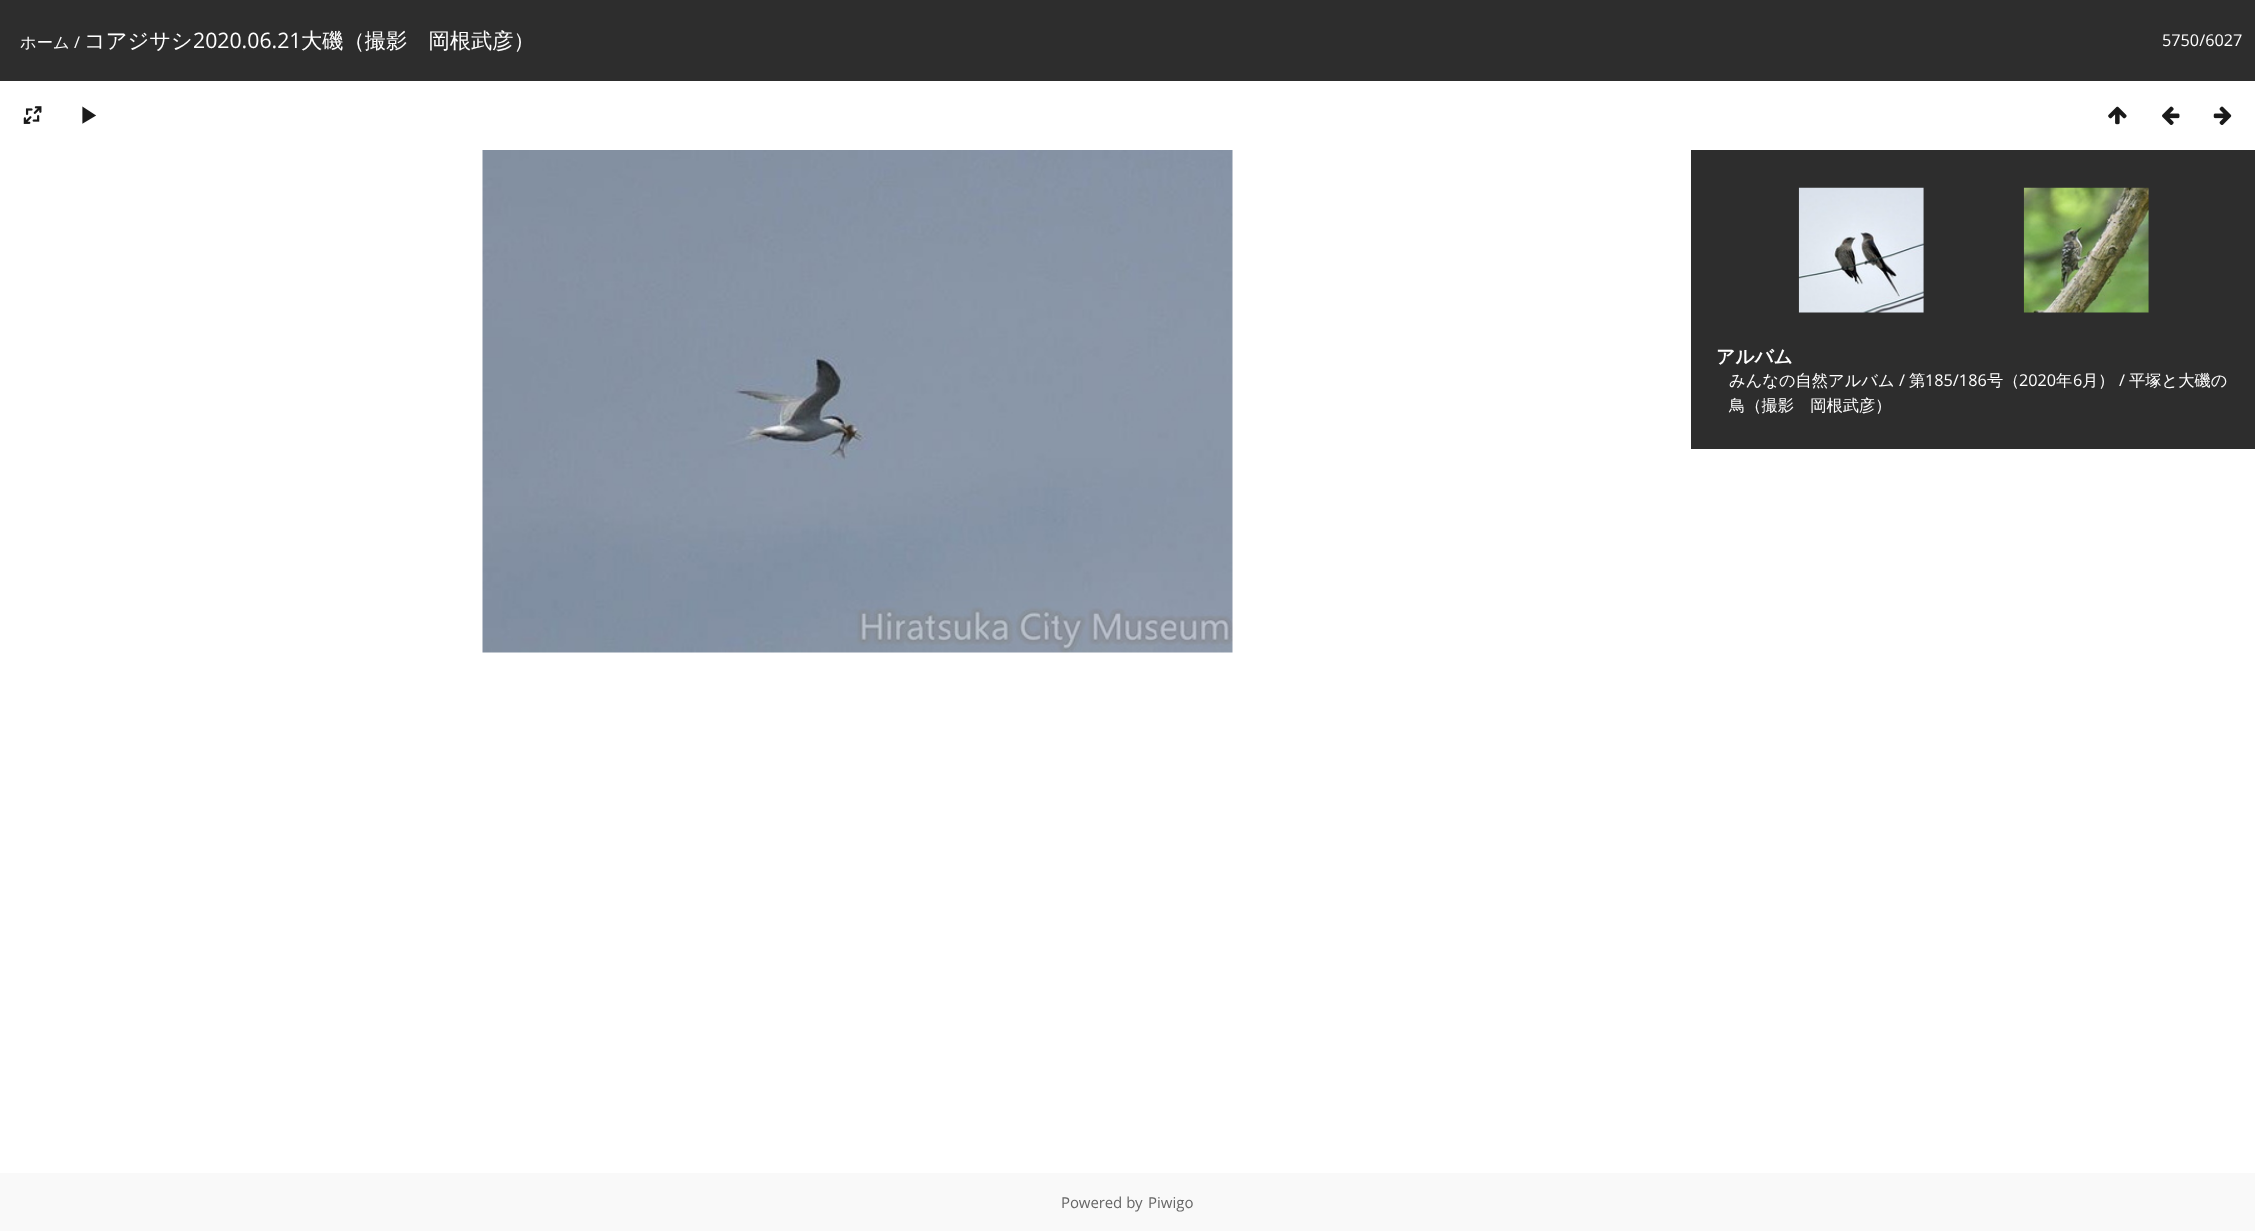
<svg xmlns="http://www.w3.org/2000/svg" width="2255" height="1231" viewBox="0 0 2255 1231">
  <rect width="100%" height="100%" fill="#fff"/>
  <path d="M0 0h2255v81H0z" fill="#2d2d2d"/>
  <image x="23" y="106" width="19" height="18" href="img/1.png"/>
  <image x="2108" y="106" width="19" height="19" href="img/2.png"/>
  <image x="2162" y="106" width="18" height="19" href="img/3.png"/>
  <image x="2213" y="106" width="19" height="19" href="img/4.png"/>
  <image x="482" y="150" width="751" height="503" href="img/5.png"/>
  <path d="M1691 150h564v299H1691z" fill="#2d2d2d"/>
  <image x="1798" y="187" width="126" height="126" href="img/6.png"/>
  <image x="2023" y="187" width="126" height="126" href="img/7.png"/>
  <path d="M0 1173h2255v58H0z" fill="#f9f9f9"/>
  <text x="20" y="48" font-family="WenQuanYi Zen Hei" font-size="16.25" font-weight="500" fill="#fff">ホーム</text>
  <text x="74" y="48" font-family="Open Sans" font-size="16.25" fill="#fff">/</text>
  <text x="84" y="48" font-family="WenQuanYi Zen Hei" font-size="21.25" font-weight="500" fill="#fff">コアジサシ</text>
  <text x="193" y="48" font-family="Open Sans" font-size="21.25" fill="#fff">2020.06.21</text>
  <text x="301" y="48" font-family="WenQuanYi Zen Hei" font-size="21.25" font-weight="500" fill="#fff">大磯（撮影　岡根武彦）</text>
  <text x="2162" y="46" font-family="Open Sans" font-size="16.25" fill="#fff">5750/6027</text>
  <text x="79" y="123" font-family="WenQuanYi Zen Hei" font-size="21.25" font-weight="500" fill="#1a1a1a">▶</text>
  <text x="1716" y="363" font-family="WenQuanYi Zen Hei" font-size="18.75" font-weight="bold" fill="#fff">アルバム</text>
  <text x="1729" y="386" font-family="WenQuanYi Zen Hei" font-size="16.25" font-weight="500" fill="#fff">みんなの自然アルバム</text>
  <text x="1899" y="386" font-family="Open Sans" font-size="16.25" fill="#fff">/</text>
  <text x="1909" y="386" font-family="WenQuanYi Zen Hei" font-size="16.25" font-weight="500" fill="#fff">第</text>
  <text x="1925" y="386" font-family="Open Sans" font-size="16.25" fill="#fff">185/186</text>
  <text x="1987" y="386" font-family="WenQuanYi Zen Hei" font-size="16.25" font-weight="500" fill="#fff">号（</text>
  <text x="2019" y="386" font-family="Open Sans" font-size="16.25" fill="#fff">2020</text>
  <text x="2056" y="386" font-family="WenQuanYi Zen Hei" font-size="16.25" font-weight="500" fill="#fff">年</text>
  <text x="2073" y="386" font-family="Open Sans" font-size="16.25" fill="#fff">6</text>
  <text x="2082" y="386" font-family="WenQuanYi Zen Hei" font-size="16.25" font-weight="500" fill="#fff">月）</text>
  <text x="2119" y="386" font-family="Open Sans" font-size="16.25" fill="#fff">/</text>
  <g font-family="WenQuanYi Zen Hei" font-size="16.25" font-weight="500" fill="#fff">
    <text x="2129" y="386">平塚と大磯の</text>
    <text x="1729" y="411">鳥（撮影　岡根武彦）</text>
  </g>
  <g font-family="Open Sans" font-size="15" fill="#666">
    <text x="1061" y="1208">Powered by</text>
    <text x="1148" y="1208">Piwigo</text>
  </g>
</svg>
